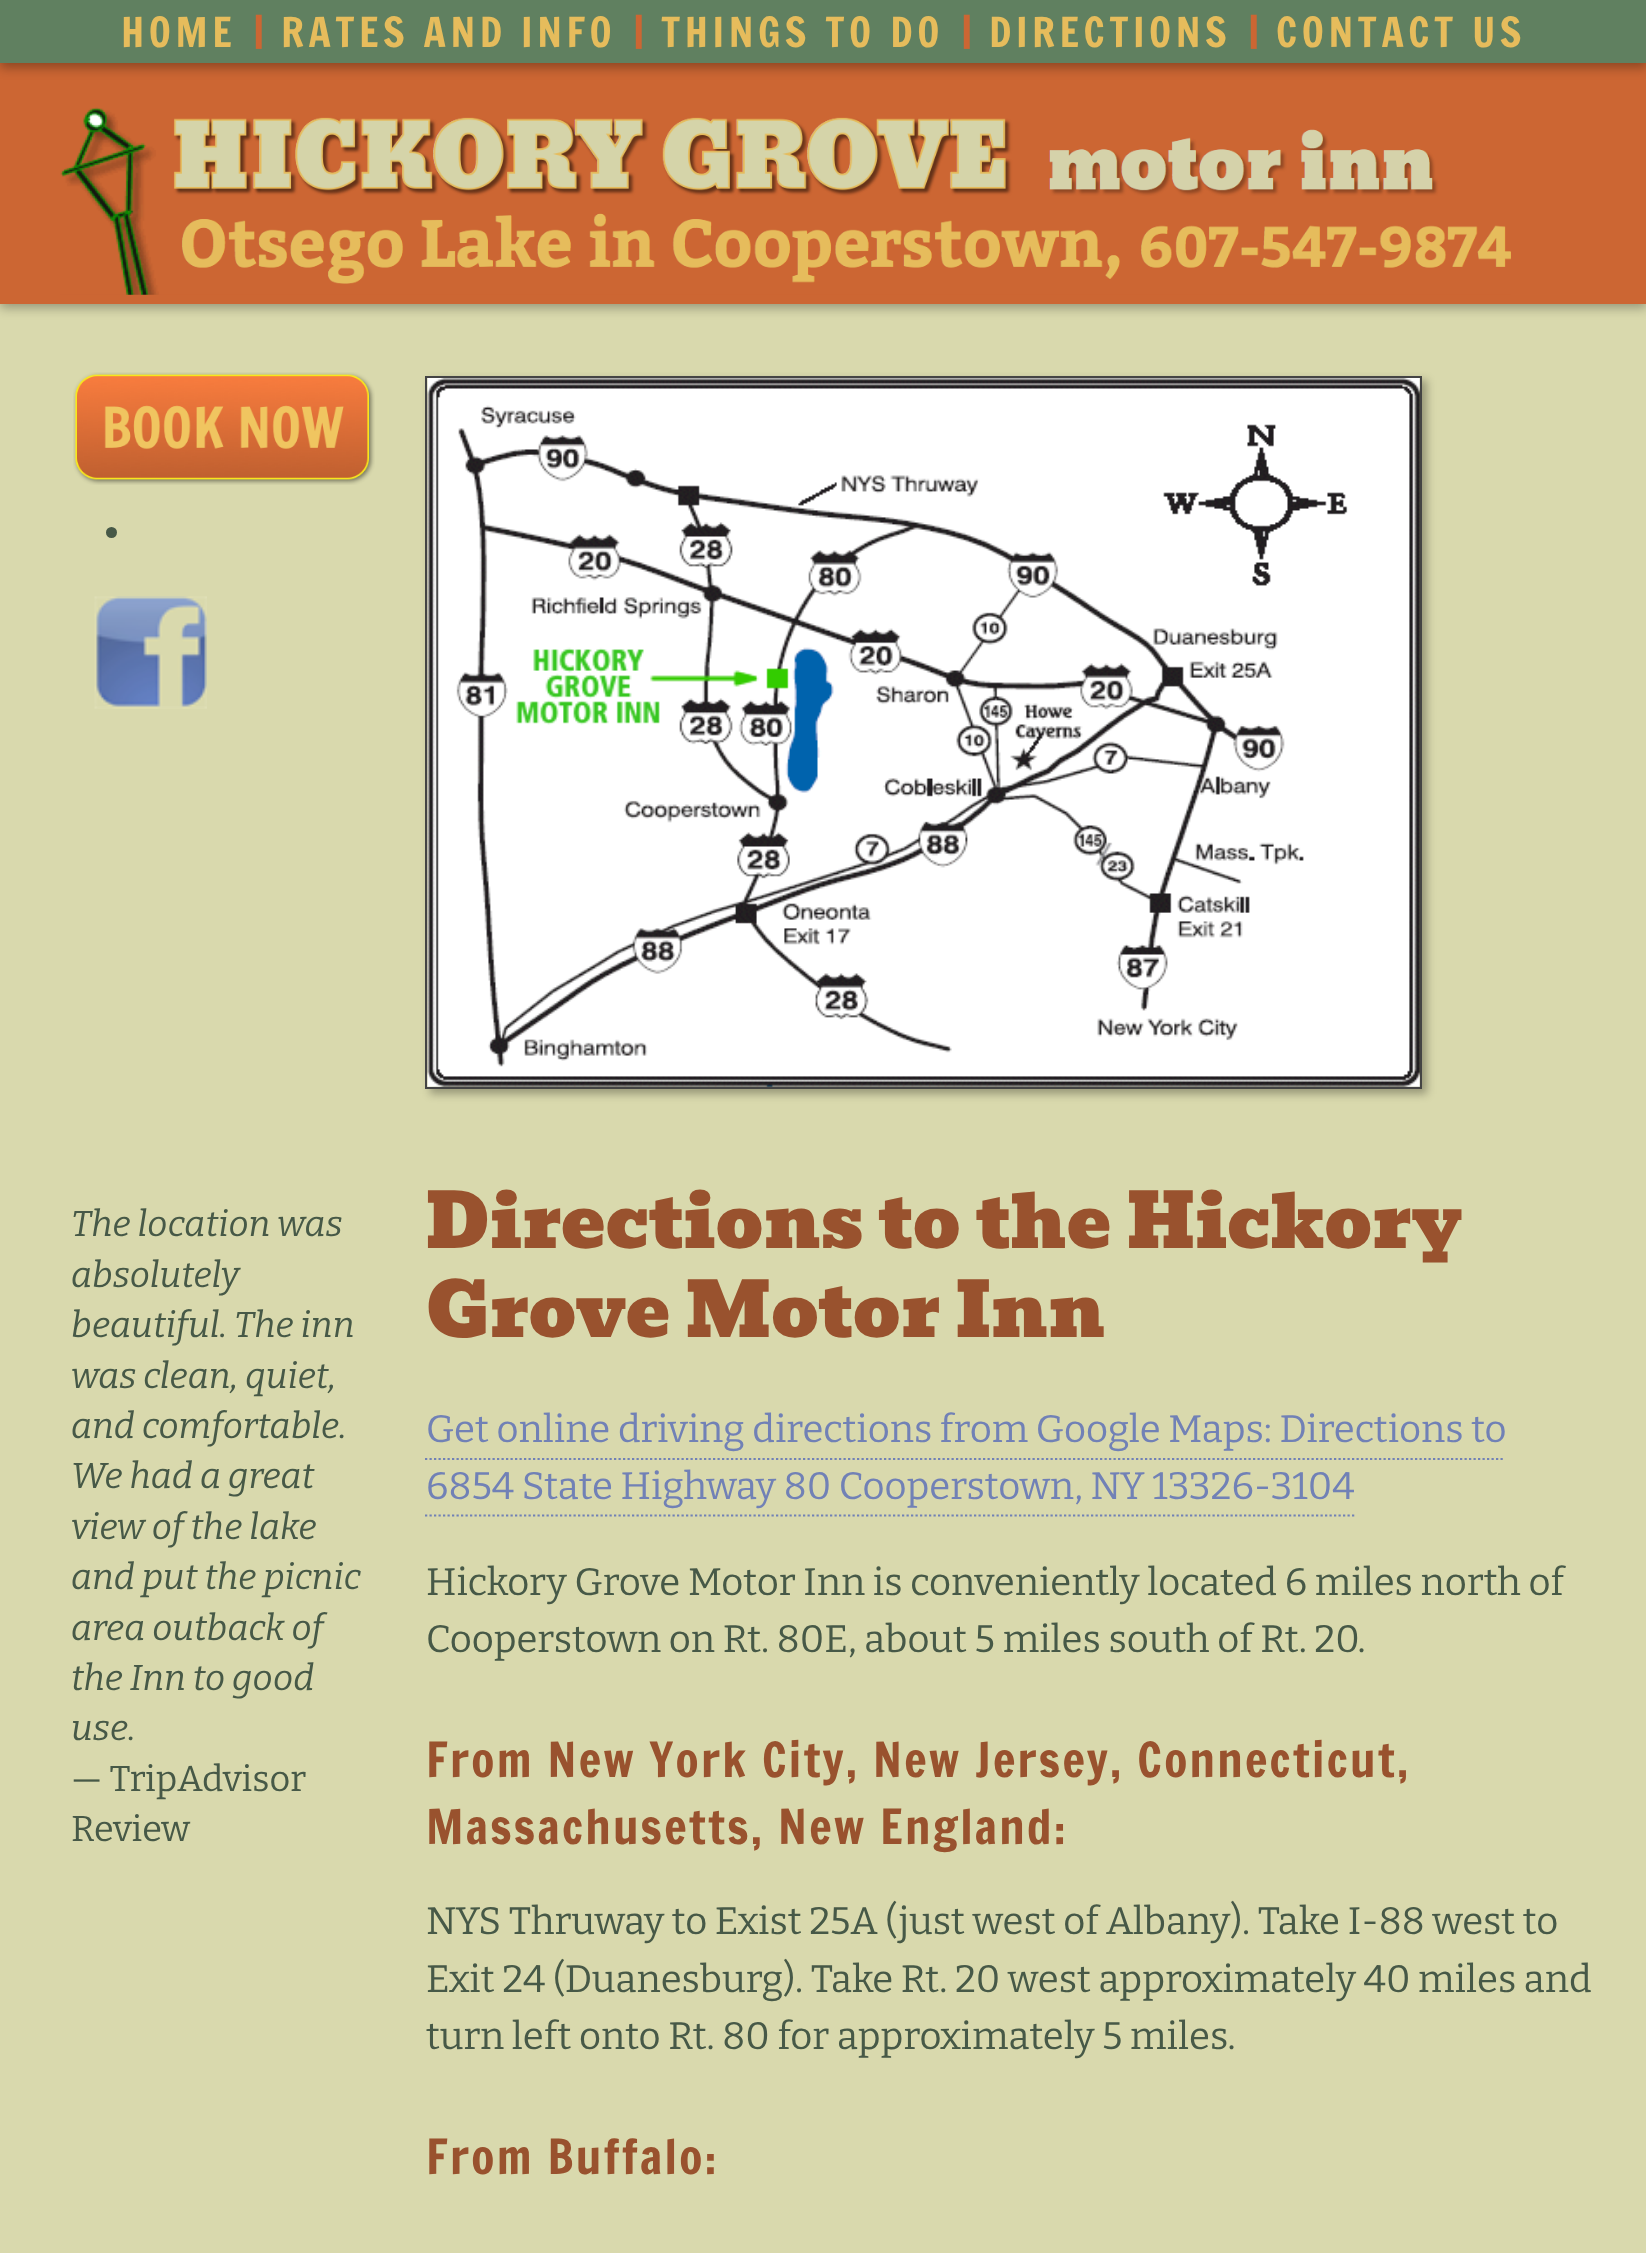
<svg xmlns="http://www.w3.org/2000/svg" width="1646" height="2253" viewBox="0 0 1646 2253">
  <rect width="100%" height="100%" fill="#d9d9ad"/>
  <path d="M0 16h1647v292H0z" fill="#0000004d" filter="blur(5.5px)"/>
  <path d="M0 63h1646v241H0z" fill="#c63"/>
  <image x="60" y="107" width="1451" height="188" href="img/1.png"/>
  <path d="M0 5h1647v63H0z" fill="#0000004d" filter="blur(5.5px)"/>
  <path d="M0 0h1646v63H0z" fill="#608060"/>
  <image x="73" y="372" width="302" height="113" href="img/2.png"/>
  <circle cx="111.5" cy="532.5" r="5.5" fill="#475947"/>
  <image x="94" y="596" width="113" height="113" href="img/3.png"/>
  <path d="M430 380h997v714H430z" fill="#0000004d" filter="blur(4.5px)"/>
  <path d="M426 377h995v711H426z" fill="none" stroke="#444" stroke-width="2"/>
  <image x="427" y="378" width="993" height="709" href="img/4.png"/>
  <path d="M425 1459H1505" fill="none" stroke="#7181b6" stroke-width="2.2" stroke-dasharray="2.25 2.25"/>
  <path d="M425 1515.5H1354.5" fill="none" stroke="#7181b6" stroke-width="2.2" stroke-dasharray="2.25 2.25"/>
  <text x="121" y="47" font-family="Francois One" font-size="40.5" letter-spacing="4.5" fill="#e6bc5c">HOME</text>
  <text x="253" y="47" font-family="Francois One" font-size="40.5" fill="#c63">|</text>
  <text x="281" y="47" font-family="Francois One" font-size="40.5" letter-spacing="4.5" fill="#e6bc5c">RATES AND INFO</text>
  <text x="633" y="47" font-family="Francois One" font-size="40.5" fill="#c63">|</text>
  <text x="661" y="47" font-family="Francois One" font-size="40.5" letter-spacing="4.5" fill="#e6bc5c">THINGS TO DO</text>
  <text x="961" y="47" font-family="Francois One" font-size="40.5" fill="#c63">|</text>
  <text x="989" y="47" font-family="Francois One" font-size="40.5" letter-spacing="4.5" fill="#e6bc5c">DIRECTIONS</text>
  <text x="1248" y="47" font-family="Francois One" font-size="40.5" fill="#c63">|</text>
  <text x="1276" y="47" font-family="Francois One" font-size="40.5" letter-spacing="4.5" fill="#e6bc5c">CONTACT US</text>
  <g font-family="Bitter" font-size="36" font-weight="100" font-style="italic" fill="#475947">
    <text x="71" y="1236">The location was</text>
    <text x="71" y="1287">absolutely</text>
    <text x="71" y="1337">beautiful. The inn</text>
    <text x="71" y="1388">was clean, quiet,</text>
    <text x="71" y="1438">and comfortable.</text>
    <text x="71" y="1488">We had a great</text>
    <text x="71" y="1539">view of the lake</text>
    <text x="71" y="1589">and put the picnic</text>
    <text x="71" y="1640">area outback of</text>
    <text x="71" y="1690">the Inn to good</text>
    <text x="71" y="1740">use.</text>
  </g>
  <g font-family="Bitter" font-size="36" fill="#475947">
    <text x="71" y="1791">— TripAdvisor</text>
    <text x="71" y="1841">Review</text>
  </g>
  <g font-family="Bevan" font-size="74.25" fill="#99522e">
    <text x="426" y="1248">Directions to the Hickory</text>
    <text x="426" y="1337">Grove Motor Inn</text>
  </g>
  <g font-family="Bitter" font-size="38.25" fill="#7181b6">
    <text x="426" y="1442">Get online driving directions from Google Maps: Directions to</text>
    <text x="426" y="1499">6854 State Highway 80 Cooperstown, NY 13326-3104</text>
  </g>
  <g font-family="Bitter" font-size="38.25" fill="#475947">
    <text x="426" y="1595">Hickory Grove Motor Inn is conveniently located 6 miles north of</text>
    <text x="426" y="1652">Cooperstown on Rt. 80E, about 5 miles south of Rt. 20.</text>
  </g>
  <g font-family="Francois One" font-size="47.25" letter-spacing="2.25" fill="#99522e">
    <text x="426" y="1777">From New York City, New Jersey, Connecticut,</text>
    <text x="426" y="1844">Massachusetts, New England:</text>
  </g>
  <g font-family="Bitter" font-size="38.25" fill="#475947">
    <text x="426" y="1934">NYS Thruway to Exist 25A (just west of Albany). Take I-88 west to</text>
    <text x="426" y="1992">Exit 24 (Duanesburg). Take Rt. 20 west approximately 40 miles and</text>
    <text x="426" y="2049">turn left onto Rt. 80 for approximately 5 miles.</text>
  </g>
  <text x="426" y="2174" font-family="Francois One" font-size="47.25" letter-spacing="2.25" fill="#99522e">From Buffalo:</text>
</svg>
